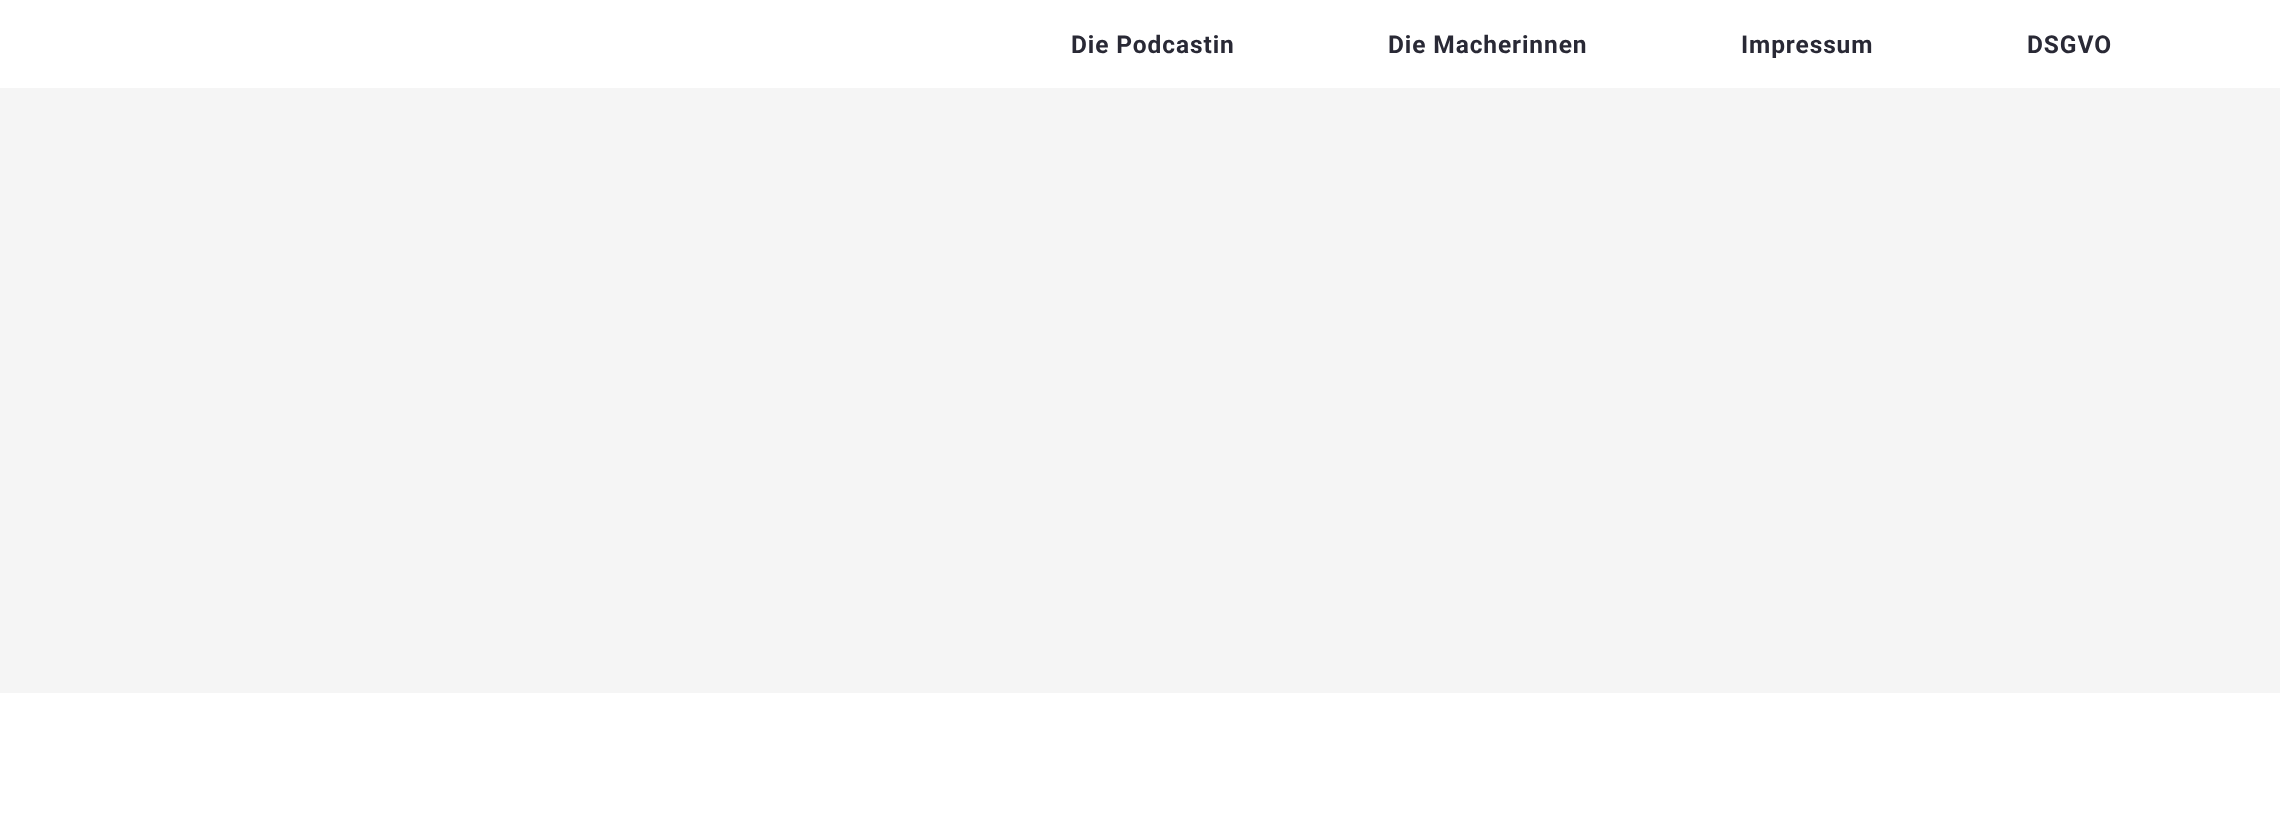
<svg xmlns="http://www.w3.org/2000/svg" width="2280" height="832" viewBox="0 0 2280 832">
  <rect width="100%" height="100%" fill="#fff"/>
  <path d="M0 88h2280v605H0z" fill="#f5f5f5"/>
  <g font-family="Roboto" font-size="24.5" font-weight="bold" letter-spacing="0.9" fill="#292935">
    <text x="1071" y="53">Die Podcastin</text>
    <text x="1388" y="53">Die Macherinnen</text>
    <text x="1741" y="53">Impressum</text>
    <text x="2027" y="53">DSGVO</text>
  </g>
</svg>
